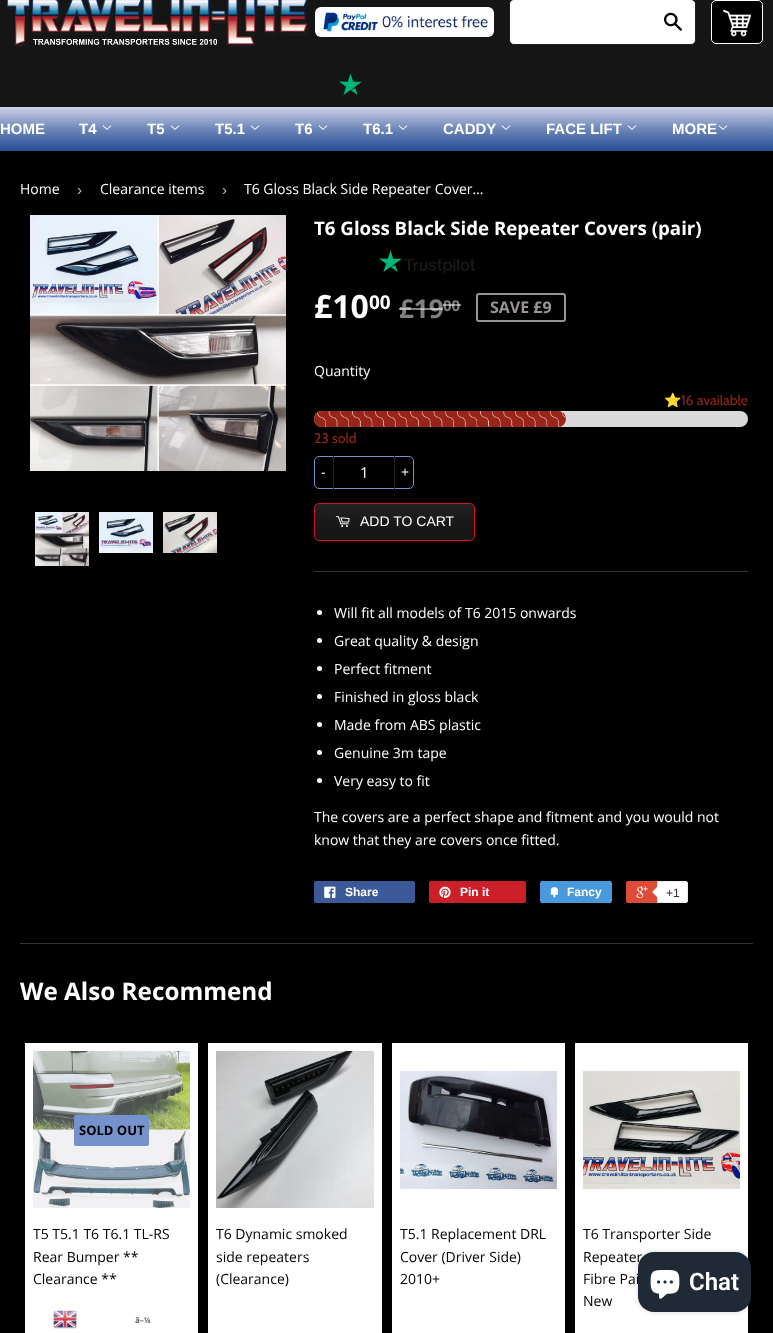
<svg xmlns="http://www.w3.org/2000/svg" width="773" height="1333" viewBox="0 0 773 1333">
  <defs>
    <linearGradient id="g1" gradientUnits="userSpaceOnUse" x1="387" y1="107" x2="387" y2="151"><stop offset="0" stop-color="#cdd2e6"/><stop offset="0.5" stop-color="#6d86b8"/><stop offset="1" stop-color="#264e96"/></linearGradient>
    <clipPath id="clip1"><rect x="314" y="503" width="161" height="38" rx="5"/></clipPath>
    <linearGradient id="g2" gradientUnits="userSpaceOnUse" x1="395" y1="504" x2="395" y2="540"><stop offset="0" stop-color="#222"/><stop offset="0.5" stop-color="#191919"/><stop offset="1" stop-color="#151515"/></linearGradient>
  </defs>
  <rect width="100%" height="100%" fill="#000"/>
  <path d="M0 0h773v107H0z" fill="#151515"/>
  <image x="6" y="0" width="303" height="47" href="img/1.png"/>
  <image x="315" y="7" width="179" height="30" href="img/2.png"/>
  <rect x="509.5" y="-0.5" width="186" height="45" rx="4.5" fill="#fff" stroke="#1f1f1f"/>
  <image x="664" y="12" width="18" height="19" href="img/3.png"/>
  <rect x="711" width="52" height="44" rx="5" fill="#000"/>
  <image x="723" y="9" width="28" height="28" href="img/4.png"/>
  <rect x="711.5" y="0.5" width="51" height="43" rx="4.5" fill="none" stroke="#fff"/>
  <image x="339" y="73" width="23" height="22" href="img/5.png"/>
  <path d="M0 107h773v44H0z" fill="url(#g1)"/>
  <image x="102" y="125" width="10" height="5" href="img/6.png"/>
  <image x="170" y="125" width="10" height="5" href="img/6.png"/>
  <image x="250" y="125" width="10" height="5" href="img/6.png"/>
  <image x="318" y="125" width="10" height="5" href="img/6.png"/>
  <image x="398" y="125" width="10" height="5" href="img/6.png"/>
  <image x="501" y="125" width="10" height="5" href="img/6.png"/>
  <image x="627" y="125" width="10" height="5" href="img/6.png"/>
  <image x="718" y="125" width="10" height="5" href="img/6.png"/>
  <image x="30" y="215" width="256" height="256" href="img/7.png"/>
  <image x="35" y="512" width="54" height="54" href="img/8.png"/>
  <image x="99" y="512" width="54" height="41" href="img/9.png"/>
  <image x="163" y="512" width="54" height="41" href="img/10.png"/>
  <image x="379" y="250" width="96" height="24" href="img/11.png"/>
  <rect x="477" y="294" width="88" height="27" rx="2" fill="none" stroke="#999595" stroke-width="2"/>
  <rect x="314" y="411" width="434" height="16" rx="8" fill="#d9d9d9"/>
  <image x="314" y="411" width="252" height="16" href="img/12.png"/>
  <rect x="314.5" y="456.5" width="99" height="32" rx="4.5" fill="none" stroke="#7592cd"/>
  <path d="M333 456h1v33H333z" fill="#1f1f1f"/>
  <path d="M394 456h1v33H394z" fill="#1f1f1f"/>
  <g clip-path="url(#clip1)">
    <path d="M314 504h161v36H314z" fill="url(#g2)"/>
  </g>
  <rect x="314.5" y="503.5" width="160" height="37" rx="4.5" fill="none" stroke="#d11226"/>
  <image x="335" y="516" width="15" height="11" href="img/13.png"/>
  <path d="M314 571h434v1H314z" fill="#333"/>
  <circle cx="319.5" cy="612.5" r="2.5" fill="#fff"/>
  <circle cx="319.5" cy="640.5" r="2.5" fill="#fff"/>
  <circle cx="319.5" cy="668.5" r="2.5" fill="#fff"/>
  <circle cx="319.5" cy="696.5" r="2.5" fill="#fff"/>
  <circle cx="319.5" cy="724.5" r="2.5" fill="#fff"/>
  <circle cx="319.5" cy="752.5" r="2.5" fill="#fff"/>
  <circle cx="319.5" cy="780.5" r="2.5" fill="#fff"/>
  <rect x="314" y="881" width="101" height="22" rx="2" fill="#3b5998"/>
  <image x="324" y="886" width="12" height="12" href="img/14.png"/>
  <rect x="429" y="881" width="97" height="22" rx="2" fill="#cb2027"/>
  <image x="439" y="886" width="12" height="12" href="img/15.png"/>
  <rect x="540" y="881" width="72" height="22" rx="2" fill="#4999dc"/>
  <image x="550" y="887" width="9" height="11" href="img/16.png"/>
  <rect x="626" y="881" width="60" height="22" rx="2" fill="#dd4b39"/>
  <image x="636" y="886" width="12" height="12" href="img/17.png"/>
  <path d="M657.5 881.5H686C687 881.5 687.5 882 687.5 883V901C687.5 902 687 902.5 686 902.5H657.5Z" fill="#fff" stroke="#ececec"/>
  <path d="M658 886V898L652 892Z" fill="#ececec"/>
  <path d="M659 886V898L653 892Z" fill="#fff"/>
  <path d="M20 943h733v1H20z" fill="#333"/>
  <path d="M25 1043h173v290H25z" fill="#fff"/>
  <image x="33" y="1051" width="157" height="157" href="img/18.png"/>
  <rect x="74" y="1115" width="75" height="31" rx="2" fill="#7592cd"/>
  <path d="M208 1043h174v290H208z" fill="#fff"/>
  <image x="216" y="1051" width="158" height="157" href="img/19.png"/>
  <path d="M392 1043h173v290H392z" fill="#fff"/>
  <image x="400" y="1071" width="157" height="118" href="img/20.png"/>
  <path d="M575 1043h173v290H575z" fill="#fff"/>
  <image x="583" y="1071" width="157" height="118" href="img/21.png"/>
  <rect x="638" y="1252" width="113" height="60" rx="16" fill="#00000026" filter="blur(2.5px)"/>
  <image x="53" y="1310" width="24" height="19" href="img/23.png"/>
  <g font-family="Liberation Sans" font-size="15" font-weight="bold" fill="#fff">
    <text x="0" y="134">HOME</text>
    <text x="79" y="134">T4</text>
    <text x="147" y="134">T5</text>
    <text x="215" y="134">T5.1</text>
    <text x="295" y="134">T6</text>
    <text x="363" y="134">T6.1</text>
    <text x="443" y="134">CADDY</text>
    <text x="546" y="134">FACE LIFT</text>
    <text x="672" y="134">MORE</text>
  </g>
  <text x="20" y="194" font-family="Open Sans" font-size="14" fill="#fff">Home</text>
  <text x="77" y="195" font-family="Liberation Sans" font-size="15" fill="#bbb">›</text>
  <text x="100" y="194" font-family="Open Sans" font-size="14" fill="#fff">Clearance items</text>
  <text x="222" y="195" font-family="Liberation Sans" font-size="15" fill="#bbb">›</text>
  <text x="244" y="194" font-family="Open Sans" font-size="14" fill="#fff">T6 Gloss Black Side Repeater Cover…</text>
  <text x="314" y="235" font-family="Open Sans" font-size="18.7" font-weight="bold" fill="#fff">T6 Gloss Black Side Repeater Covers (pair)</text>
  <text x="314" y="318" font-family="Open Sans" font-size="32" font-weight="bold" fill="#fff">£10</text>
  <text x="369" y="309" font-family="Open Sans" font-size="19" font-weight="bold" fill="#fff">00</text>
  <text x="399" y="318" font-family="Open Sans" font-size="26" font-weight="bold" fill="#808080">£19</text>
  <path d="M399 308h44v2H399z" fill="#ffffff80"/>
  <text x="443" y="311" font-family="Open Sans" font-size="15" font-weight="bold" fill="#808080">00</text>
  <path d="M443 304h18v2H443z" fill="#ffffff80"/>
  <text x="490" y="313" font-family="Open Sans" font-size="16" font-weight="bold" fill="#999595">SAVE £9</text>
  <text x="314" y="376" font-family="Open Sans" font-size="14" fill="#fff">Quantity</text>
  <text x="664" y="405" font-family="Noto Color Emoji" font-size="14" fill="#992519">⭐</text>
  <g font-family="Cabin" font-size="14" fill="#992519">
    <text x="681" y="405">16 available</text>
    <text x="314" y="443">23 sold</text>
  </g>
  <text x="321" y="477" font-family="Open Sans" font-size="14" fill="#fff">-</text>
  <text x="360" y="478" font-family="Open Sans" font-size="15" fill="#fff">1</text>
  <text x="401" y="477" font-family="Open Sans" font-size="14" fill="#fff">+</text>
  <text x="360" y="526" font-family="Liberation Sans" font-size="14" fill="#fff">ADD TO CART</text>
  <g font-family="Open Sans" font-size="14" fill="#fff">
    <text x="334" y="618">Will fit all models of T6 2015 onwards</text>
    <text x="334" y="646">Great quality &amp; design</text>
    <text x="334" y="674">Perfect fitment</text>
    <text x="334" y="702">Finished in gloss black</text>
    <text x="334" y="730">Made from ABS plastic</text>
    <text x="334" y="758">Genuine 3m tape</text>
    <text x="334" y="786">Very easy to fit</text>
    <text x="314" y="822">The covers are a perfect shape and fitment and you would not</text>
    <text x="314" y="845">know that they are covers once fitted.</text>
  </g>
  <g font-family="Liberation Sans" font-size="12" font-weight="bold" fill="#fff">
    <text x="345" y="896">Share</text>
    <text x="460" y="896">Pin it</text>
    <text x="567" y="896">Fancy</text>
  </g>
  <text x="666" y="897" font-family="Liberation Sans" font-size="12" fill="#333">+1</text>
  <text x="20" y="1000" font-family="Open Sans" font-size="24.25" font-weight="bold" fill="#fff">We Also Recommend</text>
  <text x="79" y="1135" font-family="Open Sans" font-size="13" font-weight="bold" fill="#000">SOLD OUT</text>
  <g font-family="Open Sans" font-size="14" fill="#000">
    <text x="33" y="1239">T5 T5.1 T6 T6.1 TL-RS</text>
    <text x="33" y="1262">Rear Bumper **</text>
    <text x="33" y="1284">Clearance **</text>
    <text x="216" y="1239">T6 Dynamic smoked</text>
    <text x="216" y="1262">side repeaters</text>
    <text x="216" y="1284">(Clearance)</text>
    <text x="400" y="1239">T5.1 Replacement DRL</text>
    <text x="400" y="1262">Cover (Driver Side)</text>
    <text x="400" y="1284">2010+</text>
    <text x="583" y="1239">T6 Transporter Side</text>
    <text x="583" y="1262">Repeater</text>
    <text x="583" y="1284">Fibre Pai</text>
    <text x="583" y="1306">New</text>
  </g>
  <rect x="638" y="1252" width="113" height="60" rx="16" fill="#202a36"/>
  <image x="650" y="1270" width="30" height="29" href="img/22.png"/>
  <text x="689" y="1290" font-family="Roboto" font-size="24" font-weight="600" fill="#fff">Chat</text>
  <text x="135" y="1323" font-family="Open Sans" font-size="8" font-weight="bold" fill="#666">â–¼</text>
</svg>
